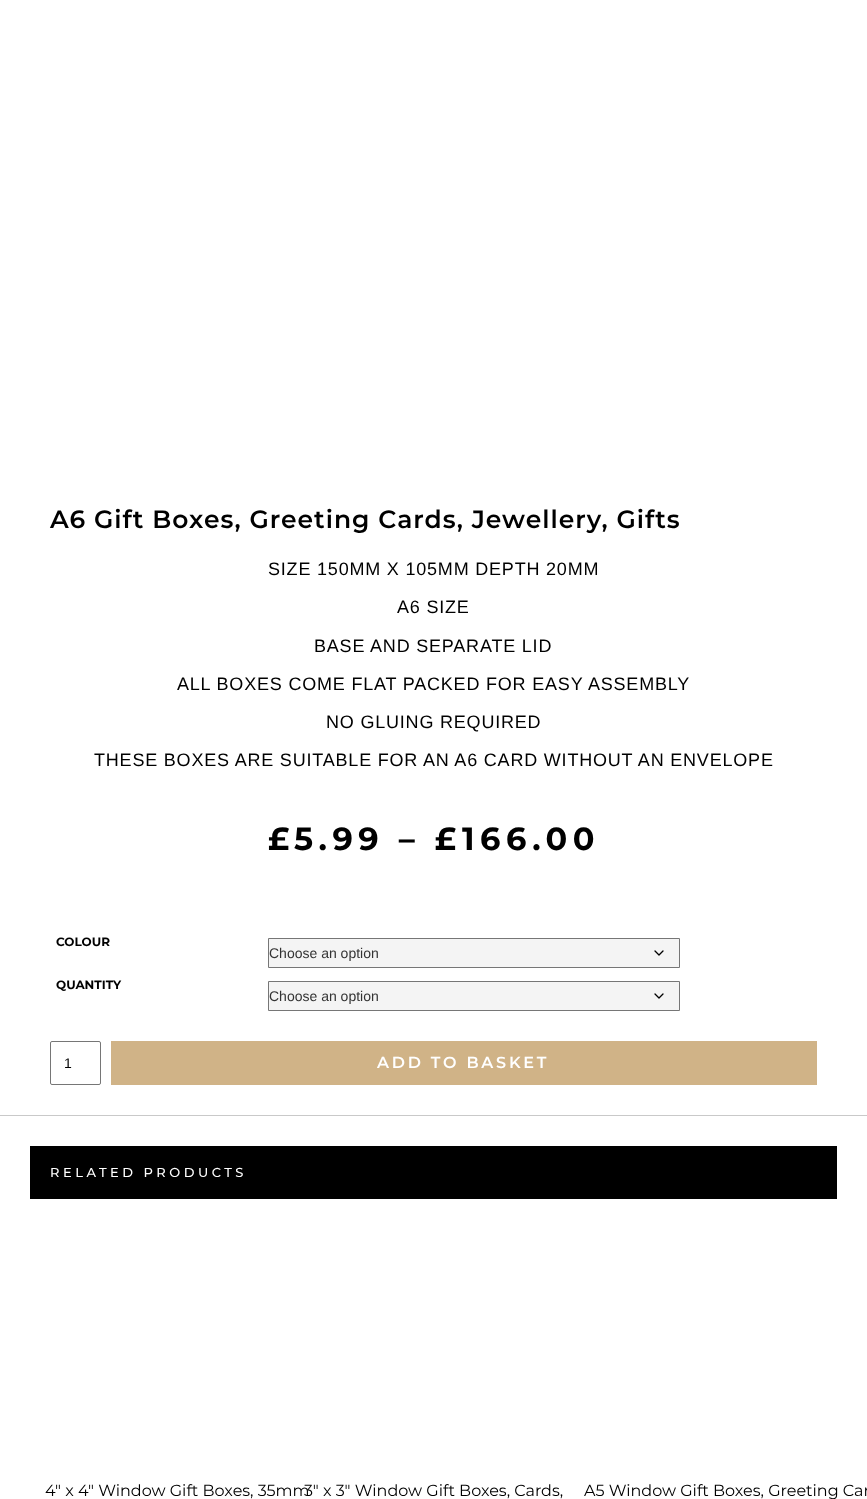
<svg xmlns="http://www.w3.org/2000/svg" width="867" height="1499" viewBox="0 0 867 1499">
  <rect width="100%" height="100%" fill="#fff"/>
  <path d="M0 1115h867v1H0z" fill="#c9c9c9"/>
  <path d="M269 939h410v28H269z" fill="#f4f4f4"/>
  <path d="M655 951L659 955L663 951" fill="none" stroke="#000" stroke-width="1.3" stroke-linecap="round" stroke-linejoin="round"/>
  <path d="M268.5 938.5h411v29H268.5z" fill="none" stroke="#767676"/>
  <path d="M269 982h410v28H269z" fill="#f4f4f4"/>
  <path d="M655 994L659 998L663 994" fill="none" stroke="#000" stroke-width="1.3" stroke-linecap="round" stroke-linejoin="round"/>
  <path d="M268.5 981.5h411v29H268.5z" fill="none" stroke="#767676"/>
  <rect x="50.5" y="1041.5" width="50" height="43" rx="1.5" fill="none" stroke="#767676"/>
  <path d="M111 1041h706v44H111z" fill="#d0b387"/>
  <path d="M30 1146h807v53H30z" fill="#000"/>
  <text x="50" y="528" font-family="Montserrat" font-size="25" font-weight="600" letter-spacing="1" fill="#000">A6 Gift Boxes, Greeting Cards, Jewellery, Gifts</text>
  <g font-family="Liberation Sans" font-size="18" letter-spacing="0.8" fill="#000">
    <text x="268" y="575">SIZE 150MM X 105MM DEPTH 20MM</text>
    <text x="397" y="613">A6 SIZE</text>
    <text x="314" y="652">BASE AND SEPARATE LID</text>
    <text x="177" y="690">ALL BOXES COME FLAT PACKED FOR EASY ASSEMBLY</text>
    <text x="326" y="728">NO GLUING REQUIRED</text>
    <text x="94" y="766">THESE BOXES ARE SUITABLE FOR AN A6 CARD WITHOUT AN ENVELOPE</text>
  </g>
  <g font-family="Montserrat" font-size="32" font-weight="bold" letter-spacing="5.5" fill="#000">
    <text x="268" y="850">£</text>
    <text x="294" y="850">5.99 – £</text>
    <text x="462" y="850">166.00</text>
  </g>
  <text x="56" y="946" font-family="Montserrat" font-size="12" font-weight="bold" fill="#000">COLOUR</text>
  <text x="269" y="958" font-family="Liberation Sans" font-size="14" fill="#333">Choose an option</text>
  <text x="56" y="989" font-family="Montserrat" font-size="12" font-weight="bold" fill="#000">QUANTITY</text>
  <text x="269" y="1001" font-family="Liberation Sans" font-size="14" fill="#333">Choose an option</text>
  <text x="64" y="1068" font-family="Liberation Sans" font-size="14" fill="#000">1</text>
  <text x="377" y="1068" font-family="Montserrat" font-size="16" font-weight="600" letter-spacing="2.75" fill="#fff">ADD TO BASKET</text>
  <text x="50" y="1177" font-family="Montserrat" font-size="13" font-weight="500" letter-spacing="3.5" fill="#fff">RELATED PRODUCTS</text>
  <g font-family="Montserrat" font-size="16" fill="#000">
    <text x="45" y="1496">4″ x 4″ Window Gift Boxes, 35mm</text>
    <text x="304" y="1496">3″ x 3″ Window Gift Boxes, Cards,</text>
    <text x="584" y="1496">A5 Window Gift Boxes, Greeting Car</text>
  </g>
</svg>
